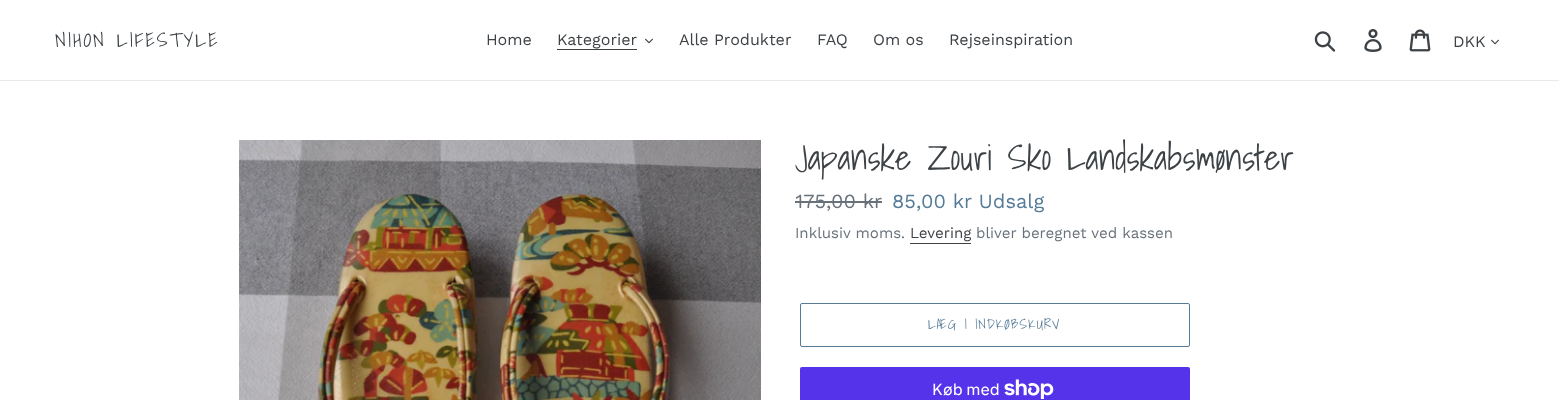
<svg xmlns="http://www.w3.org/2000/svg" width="1559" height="400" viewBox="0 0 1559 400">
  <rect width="100%" height="100%" fill="#fff"/>
  <path d="M0 80h1559v1H0z" fill="#e8e9eb"/>
  <path d="M557 49h80v1H557z" fill="#3d4246"/>
  <image x="645" y="38" width="8" height="6" href="img/1.png"/>
  <image x="1314" y="31" width="22" height="21" href="img/2.png"/>
  <image x="1364" y="29" width="18" height="23" href="img/3.png"/>
  <image x="1409" y="29" width="22" height="23" href="img/4.png"/>
  <image x="1491" y="39" width="8" height="6" href="img/1.png"/>
  <image x="239" y="140" width="522" height="260" href="img/5.png"/>
  <path d="M795 201h87v2H795z" fill="#69727b"/>
  <path d="M910 243h61v1H910z" fill="#3d4246"/>
  <rect x="800.5" y="303.5" width="389" height="43" rx="1.5" fill="none" stroke="#557b97"/>
  <rect x="800" y="367" width="390" height="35" rx="2" fill="#5433eb"/>
  <image x="1004" y="379" width="50" height="20" href="img/6.png"/>
  <text x="55" y="47" font-family="Shadows Into Light" font-size="20" letter-spacing="2" fill="#3d4246">NIHON LIFESTYLE</text>
  <g font-family="Work Sans" font-size="16" fill="#3d4246">
    <text x="486" y="45">Home</text>
    <text x="557" y="45">Kategorier</text>
    <text x="679" y="45">Alle Produkter</text>
    <text x="817" y="45">FAQ</text>
    <text x="873" y="45">Om os</text>
    <text x="949" y="45">Rejseinspiration</text>
    <text x="1453" y="47">DKK</text>
  </g>
  <text x="795" y="170" font-family="Shadows Into Light" font-size="35" fill="#3d4246">Japanske Zouri Sko Landskabsmønster</text>
  <text x="795" y="208" font-family="Work Sans" font-size="20" fill="#69727b">175,00 kr</text>
  <text x="892" y="208" font-family="Work Sans" font-size="20" fill="#557b97">85,00 kr Udsalg</text>
  <text x="795" y="238" font-family="Work Sans" font-size="15" fill="#69727b">Inklusiv moms.</text>
  <text x="910" y="238" font-family="Work Sans" font-size="15" fill="#3d4246">Levering</text>
  <text x="976" y="238" font-family="Work Sans" font-size="15" fill="#69727b">bliver beregnet ved kassen</text>
  <text x="928" y="329" font-family="Shadows Into Light" font-size="14" letter-spacing="1.1" fill="#557b97">LÆG I INDKØBSKURV</text>
  <text x="932" y="395" font-family="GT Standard" font-size="16" fill="#fff">Køb med</text>
</svg>
